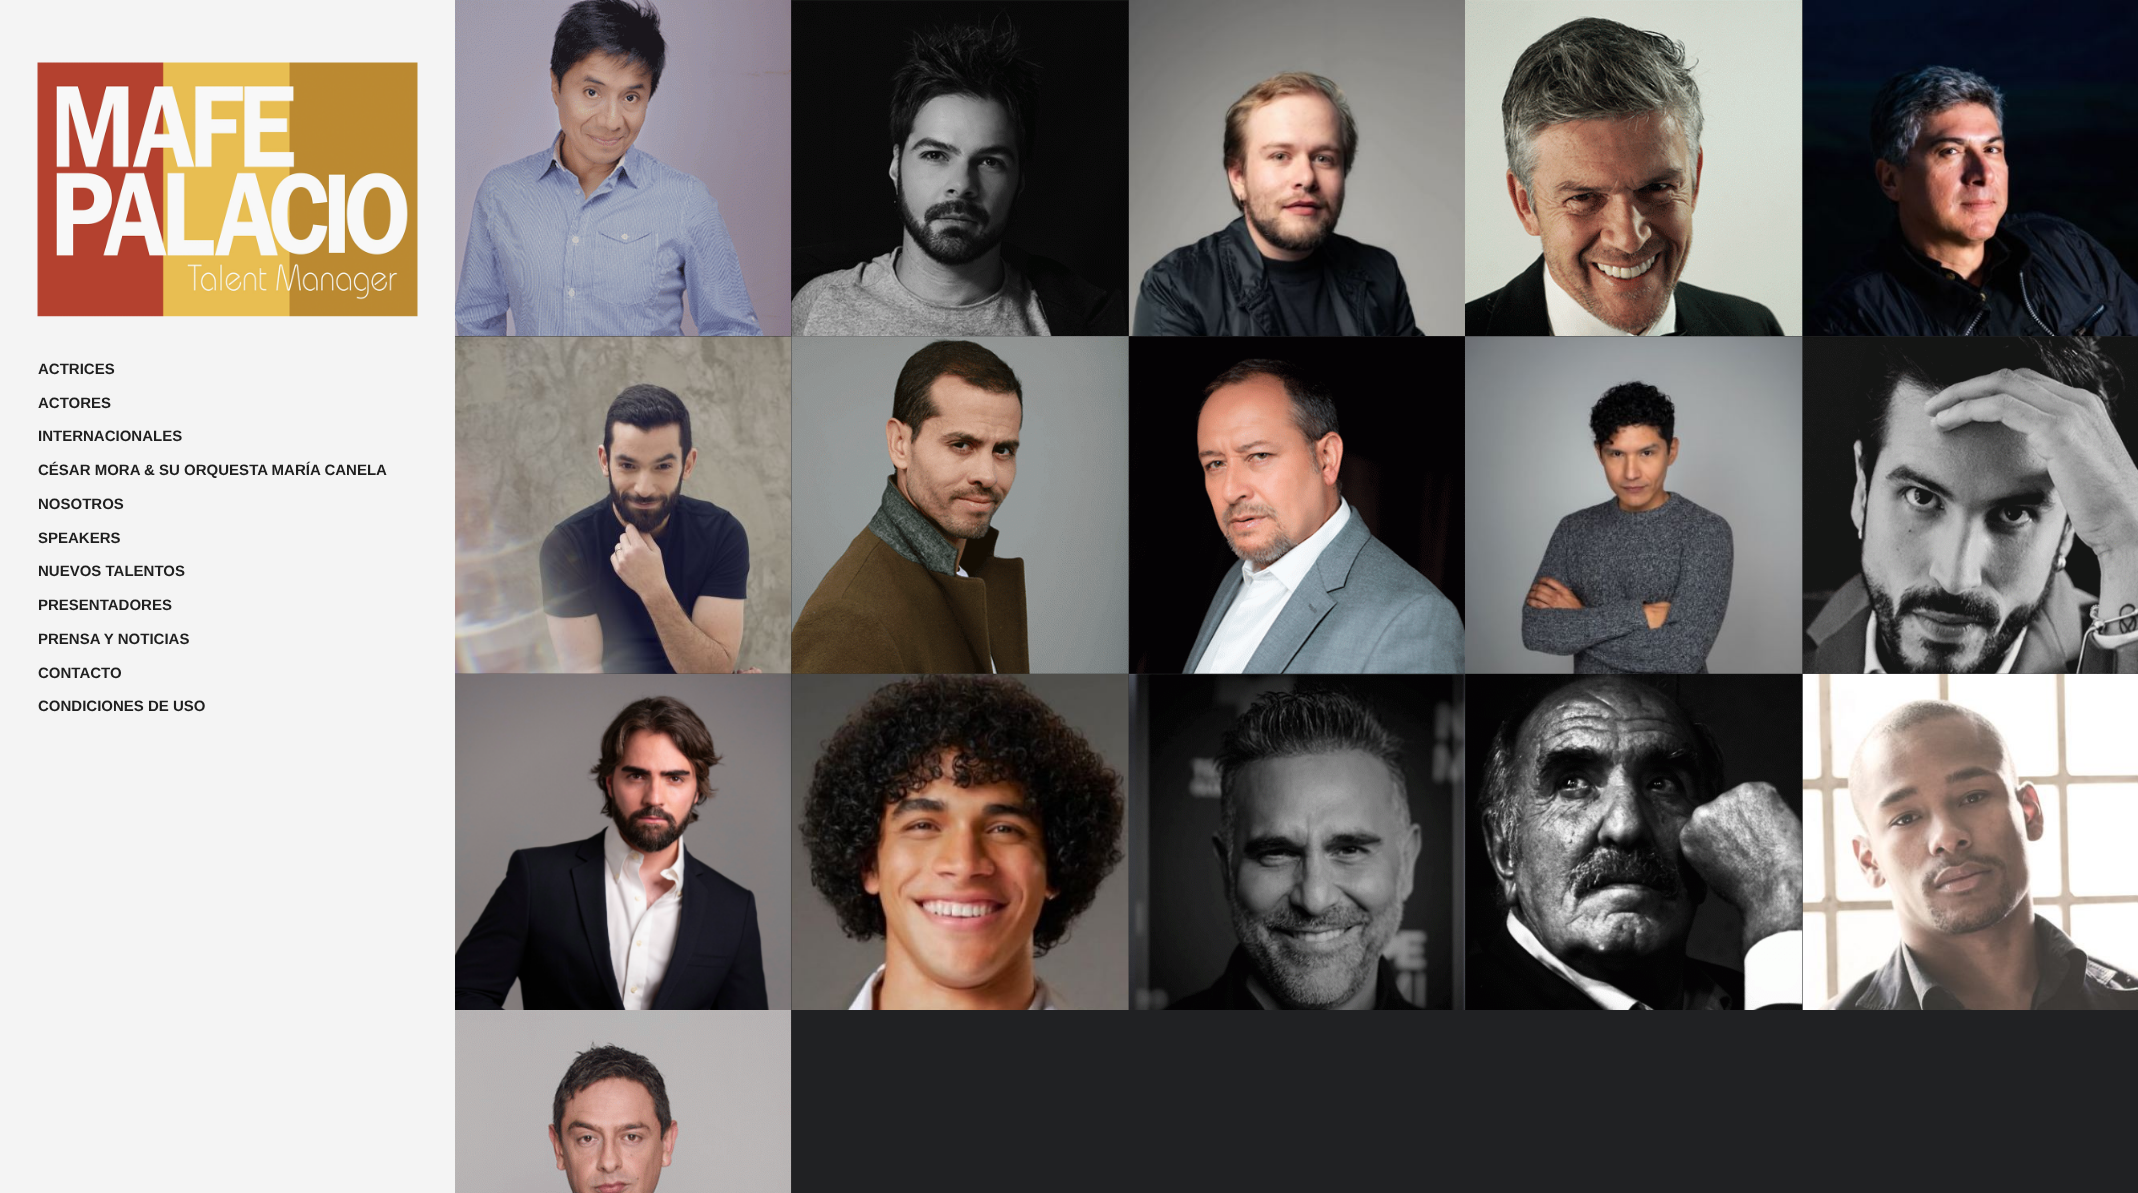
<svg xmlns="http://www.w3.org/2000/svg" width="2138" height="1193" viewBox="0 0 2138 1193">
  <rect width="100%" height="100%" fill="#202123"/>
  <path d="M0 0h455v1193H0z" fill="#f4f4f4"/>
  <image x="37" y="62" width="381" height="255" href="img/1.png"/>
  <image x="455" y="0" width="336" height="336" href="img/2.png"/>
  <path d="M791 0h338v336H791z" fill="#2a2b2c"/>
  <image x="791" y="0" width="338" height="336" href="img/3.png"/>
  <image x="1128" y="0" width="337" height="336" href="img/4.png"/>
  <path d="M1802 0h1v336H1802z" fill="#2a2b2c"/>
  <image x="1465" y="0" width="338" height="336" href="img/5.png"/>
  <image x="1802" y="0" width="336" height="336" href="img/6.png"/>
  <path d="M455 336h336v338H455z" fill="#2a2b2c"/>
  <image x="455" y="336" width="336" height="338" href="img/7.png"/>
  <path d="M791 336h338v338H791z" fill="#373839"/>
  <image x="791" y="336" width="338" height="338" href="img/8.png"/>
  <path d="M1129 336h336v338H1129z" fill="#2a2b2c"/>
  <image x="1128" y="336" width="337" height="338" href="img/9.png"/>
  <path d="M1465 336h338v338H1465z" fill="#373839"/>
  <image x="1465" y="336" width="338" height="338" href="img/10.png"/>
  <path d="M1803 336h335v338H1803z" fill="#2a2b2c"/>
  <image x="1802" y="336" width="336" height="338" href="img/11.png"/>
  <image x="455" y="673" width="336" height="337" href="img/12.png"/>
  <path d="M791 674h338v336H791z" fill="#2a2b2c"/>
  <image x="791" y="673" width="338" height="337" href="img/13.png"/>
  <image x="1129" y="673" width="336" height="337" href="img/14.png"/>
  <path d="M1802 674h1v336H1802z" fill="#2a2b2c"/>
  <image x="1465" y="673" width="338" height="337" href="img/15.png"/>
  <image x="1802" y="673" width="336" height="337" href="img/16.png"/>
  <image x="455" y="1010" width="337" height="183" href="img/17.png"/>
  <g font-family="Liberation Sans" font-size="15" font-weight="bold" fill="#1f1f1f">
    <text x="38" y="374">ACTRICES</text>
    <text x="38" y="408">ACTORES</text>
    <text x="38" y="441">INTERNACIONALES</text>
    <text x="38" y="475">CÉSAR MORA &amp; SU ORQUESTA MARÍA CANELA</text>
    <text x="38" y="509">NOSOTROS</text>
    <text x="38" y="543">SPEAKERS</text>
    <text x="38" y="576">NUEVOS TALENTOS</text>
    <text x="38" y="610">PRESENTADORES</text>
    <text x="38" y="644">PRENSA Y NOTICIAS</text>
    <text x="38" y="678">CONTACTO</text>
    <text x="38" y="711">CONDICIONES DE USO</text>
  </g>
</svg>
